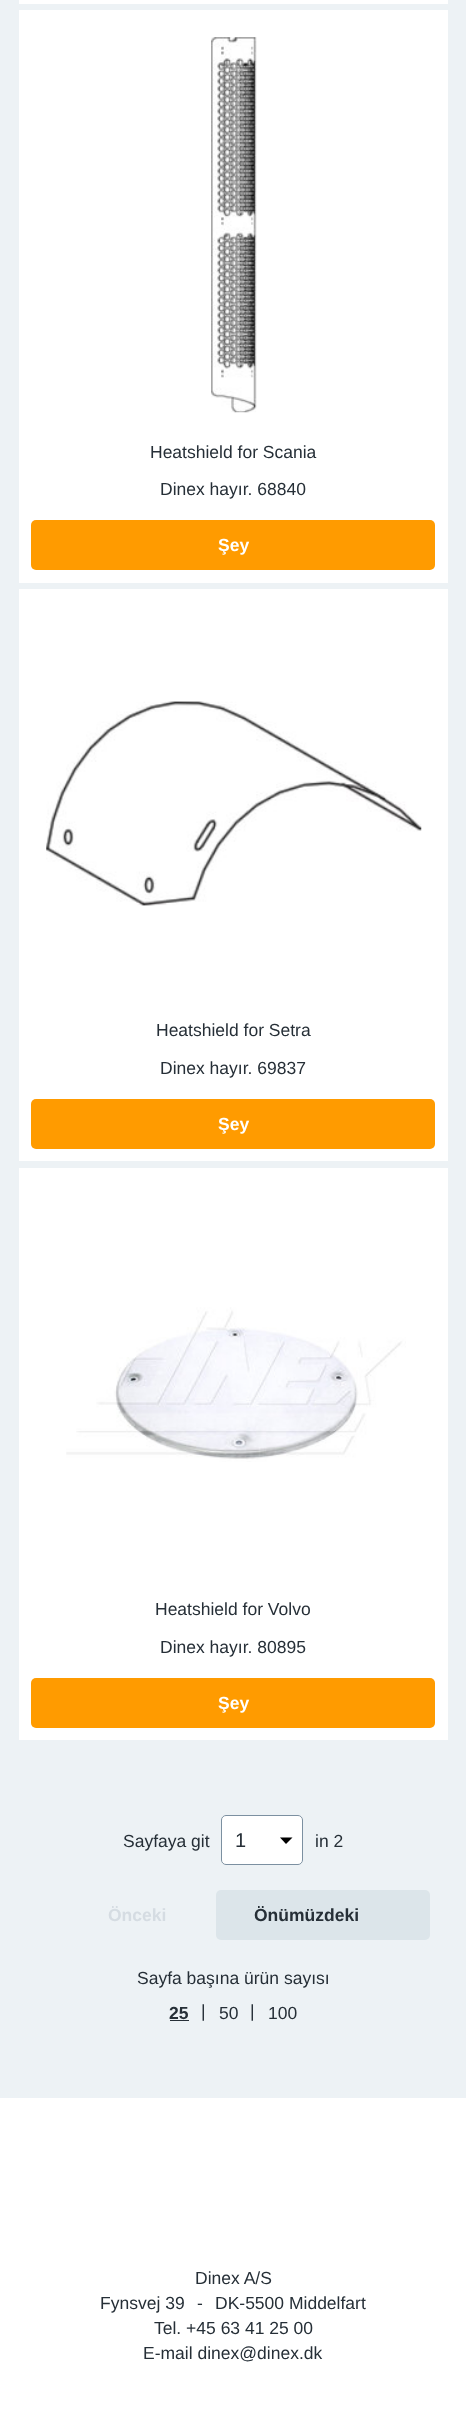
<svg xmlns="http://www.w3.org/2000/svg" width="466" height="2428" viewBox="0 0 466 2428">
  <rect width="100%" height="100%" fill="#fff"/>
  <path d="M0 0h466v2098H0z" fill="#edf2f5"/>
  <path d="M19 0h429v4H19z" fill="#fff"/>
  <path d="M19 10h429v573H19z" fill="#fff"/>
  <image x="211" y="37" width="46" height="376" href="img/1.png"/>
  <rect x="31" y="520" width="404" height="50" rx="5" fill="#ff9b00"/>
  <path d="M19 589h429v572H19z" fill="#fff"/>
  <image x="46" y="701" width="376" height="205" href="img/2.png"/>
  <rect x="31" y="1099" width="404" height="50" rx="5" fill="#ff9b00"/>
  <path d="M19 1168h429v572H19z" fill="#fff"/>
  <image x="66" y="1307" width="340" height="155" href="img/3.png"/>
  <rect x="31" y="1678" width="404" height="50" rx="5" fill="#ff9b00"/>
  <rect x="221" y="1815" width="82" height="50" rx="5" fill="#fff"/>
  <path d="M280 1837.5L286 1844L292.5 1837.5Z" fill="#000"/>
  <rect x="221.5" y="1815.5" width="81" height="49" rx="4.5" fill="none" stroke="#7c90a1"/>
  <rect x="216" y="1890" width="214" height="50" rx="5" fill="#dce5ea"/>
  <path d="M170 2020h19v1H170z" fill="#262f37"/>
  <g font-family="Liberation Sans" font-size="17.5" fill="#262f37">
    <text x="150" y="458">Heatshield for Scania</text>
    <text x="160" y="495">Dinex hayır. 68840</text>
  </g>
  <text x="218" y="551" font-family="Liberation Sans" font-size="17.5" font-weight="bold" fill="#fff">Şey</text>
  <g font-family="Liberation Sans" font-size="17.5" fill="#262f37">
    <text x="156" y="1036">Heatshield for Setra</text>
    <text x="160" y="1074">Dinex hayır. 69837</text>
  </g>
  <text x="218" y="1130" font-family="Liberation Sans" font-size="17.5" font-weight="bold" fill="#fff">Şey</text>
  <g font-family="Liberation Sans" font-size="17.5" fill="#262f37">
    <text x="155" y="1615">Heatshield for Volvo</text>
    <text x="160" y="1653">Dinex hayır. 80895</text>
  </g>
  <text x="218" y="1709" font-family="Liberation Sans" font-size="17.5" font-weight="bold" fill="#fff">Şey</text>
  <text x="123" y="1847" font-family="Liberation Sans" font-size="17.5" fill="#262f37">Sayfaya git</text>
  <text x="235" y="1847" font-family="Liberation Sans" font-size="20" fill="#262f37">1</text>
  <text x="315" y="1847" font-family="Liberation Sans" font-size="17.5" fill="#262f37">in 2</text>
  <text x="108" y="1921" font-family="Liberation Sans" font-size="17.5" font-weight="bold" fill="#d5dce2">Önceki</text>
  <text x="254" y="1921" font-family="Liberation Sans" font-size="17.5" font-weight="bold" fill="#262f37">Önümüzdeki</text>
  <text x="137" y="1984" font-family="Liberation Sans" font-size="17.5" fill="#262f37">Sayfa başına ürün sayısı</text>
  <text x="169" y="2019" font-family="Liberation Sans" font-size="17.5" font-weight="bold" fill="#262f37">25</text>
  <g font-family="Liberation Sans" font-size="17.5" fill="#262f37">
    <text x="201" y="2017">|</text>
    <text x="219" y="2019">50</text>
    <text x="250" y="2017">|</text>
    <text x="268" y="2019">100</text>
    <text x="195" y="2284">Dinex A/S</text>
    <text x="100" y="2309">Fynsvej 39</text>
    <text x="197" y="2309">-</text>
    <text x="215" y="2309">DK-5500 Middelfart</text>
    <text x="154" y="2334">Tel. +45 63 41 25 00</text>
    <text x="143" y="2359">E-mail dinex@dinex.dk</text>
  </g>
</svg>
